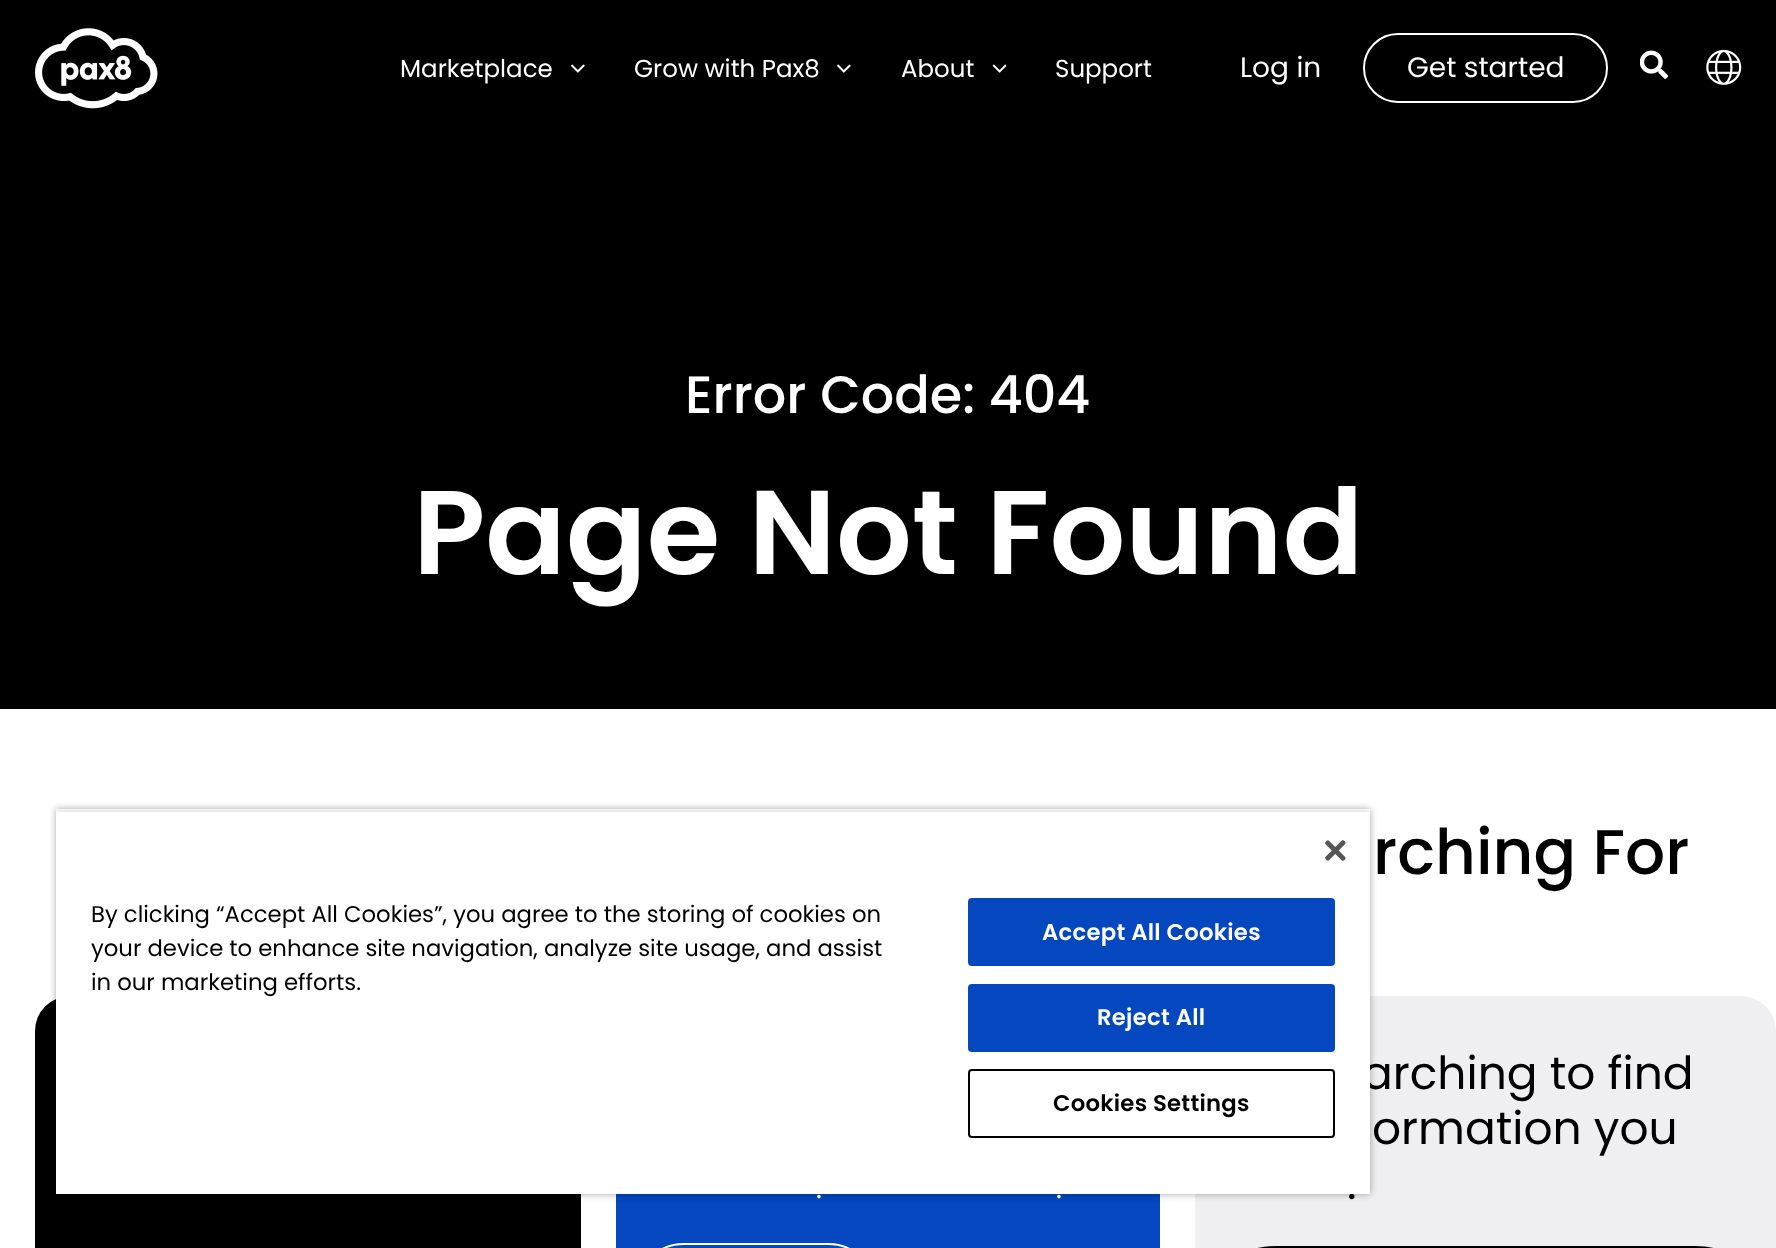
<svg xmlns="http://www.w3.org/2000/svg" width="1776" height="1248" viewBox="0 0 1776 1248">
  <defs>
    <clipPath id="clip1"><path d="M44 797H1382V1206H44ZM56 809H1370V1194H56Z" clip-rule="evenodd"/></clipPath>
    <clipPath id="clip2"><path d="M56 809h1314v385H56z"/></clipPath>
  </defs>
  <rect width="100%" height="100%" fill="#fff"/>
  <path d="M0 0h1776v709H0z" fill="#000"/>
  <image x="35" y="28" width="123" height="81" href="img/1.png"/>
  <image x="571" y="64" width="14" height="9" href="img/2.png"/>
  <image x="837" y="64" width="14" height="9" href="img/2.png"/>
  <image x="992" y="64" width="14" height="9" href="img/3.png"/>
  <rect x="1364" y="34" width="243" height="68" rx="34" fill="none" stroke="#fff" stroke-width="2"/>
  <image x="1640" y="50" width="28" height="29" href="img/4.png"/>
  <image x="1706" y="49" width="36" height="36" href="img/5.png"/>
  <rect x="35" y="996" width="546" height="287" rx="35" fill="#000"/>
  <path d="M616 1194h544v54H616z" fill="#0447bf"/>
  <rect x="652" y="1244" width="208" height="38" rx="32" fill="none" stroke="#fff" stroke-width="2"/>
  <rect x="1195" y="996" width="581" height="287" rx="35" fill="#efeff1"/>
  <rect x="1231" y="1247" width="509" height="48" rx="44.5" fill="none" stroke="#000" stroke-width="2"/>
  <g clip-path="url(#clip1)">
    <path d="M56 809h1314v385H56z" fill="#00000059" filter="blur(3.5px)"/>
  </g>
  <g clip-path="url(#clip2)">
    <path d="M56 812h1314v382H56z" fill="#00000033" filter="blur(3.5px)"/>
  </g>
  <g font-family="Poppins" font-size="24.5" fill="#fff">
    <text x="400" y="77">Marketplace</text>
    <text x="634" y="77">Grow with Pax8</text>
    <text x="901" y="77">About</text>
    <text x="1055" y="77">Support</text>
  </g>
  <g font-family="Poppins" font-size="28" fill="#fff">
    <text x="1240" y="77">Log in</text>
    <text x="1407" y="77">Get started</text>
  </g>
  <text x="685" y="413" font-family="Poppins" font-size="52.5" font-weight="500" fill="#fff">Error Code: 404</text>
  <text x="413" y="574" font-family="Poppins" font-size="119" font-weight="600" fill="#fff">Page Not Found</text>
  <text x="1373" y="874" font-family="Poppins" font-size="63" font-weight="500" fill="#000">rching For</text>
  <g font-family="Poppins" font-size="28" fill="#fff">
    <text x="816" y="1198">.</text>
    <text x="1056" y="1198">.</text>
  </g>
  <g font-family="Poppins" font-size="45.5" fill="#000">
    <text x="1362" y="1089">arching to find</text>
    <text x="1372" y="1144">ormation you</text>
    <text x="1347" y="1199">.</text>
  </g>
  <path d="M56 812h1314v382H56z" fill="#fff"/>
  <image x="1325" y="840" width="21" height="21" href="img/6.png"/>
  <g font-family="Poppins" font-size="22.75" fill="#000">
    <text x="91" y="922">By clicking “Accept All Cookies”, you agree to the storing of cookies on</text>
    <text x="91" y="956">your device to enhance site navigation, analyze site usage, and assist</text>
    <text x="91" y="990">in our marketing efforts.</text>
  </g>
  <rect x="969" y="899" width="365" height="66" rx="3" fill="#0447bf" stroke="#0447bf" stroke-width="2"/>
  <text x="1042" y="940" font-family="Poppins" font-size="22.75" font-weight="600" letter-spacing="0.25" fill="#fff">Accept All Cookies</text>
  <rect x="969" y="985" width="365" height="66" rx="3" fill="#0447bf" stroke="#0447bf" stroke-width="2"/>
  <text x="1097" y="1025" font-family="Poppins" font-size="22.75" font-weight="600" letter-spacing="0.25" fill="#fff">Reject All</text>
  <rect x="969" y="1070" width="365" height="67" rx="3" fill="none" stroke="#000" stroke-width="2"/>
  <text x="1053" y="1111" font-family="Poppins" font-size="22.75" font-weight="600" letter-spacing="0.25" fill="#000">Cookies Settings</text>
</svg>
